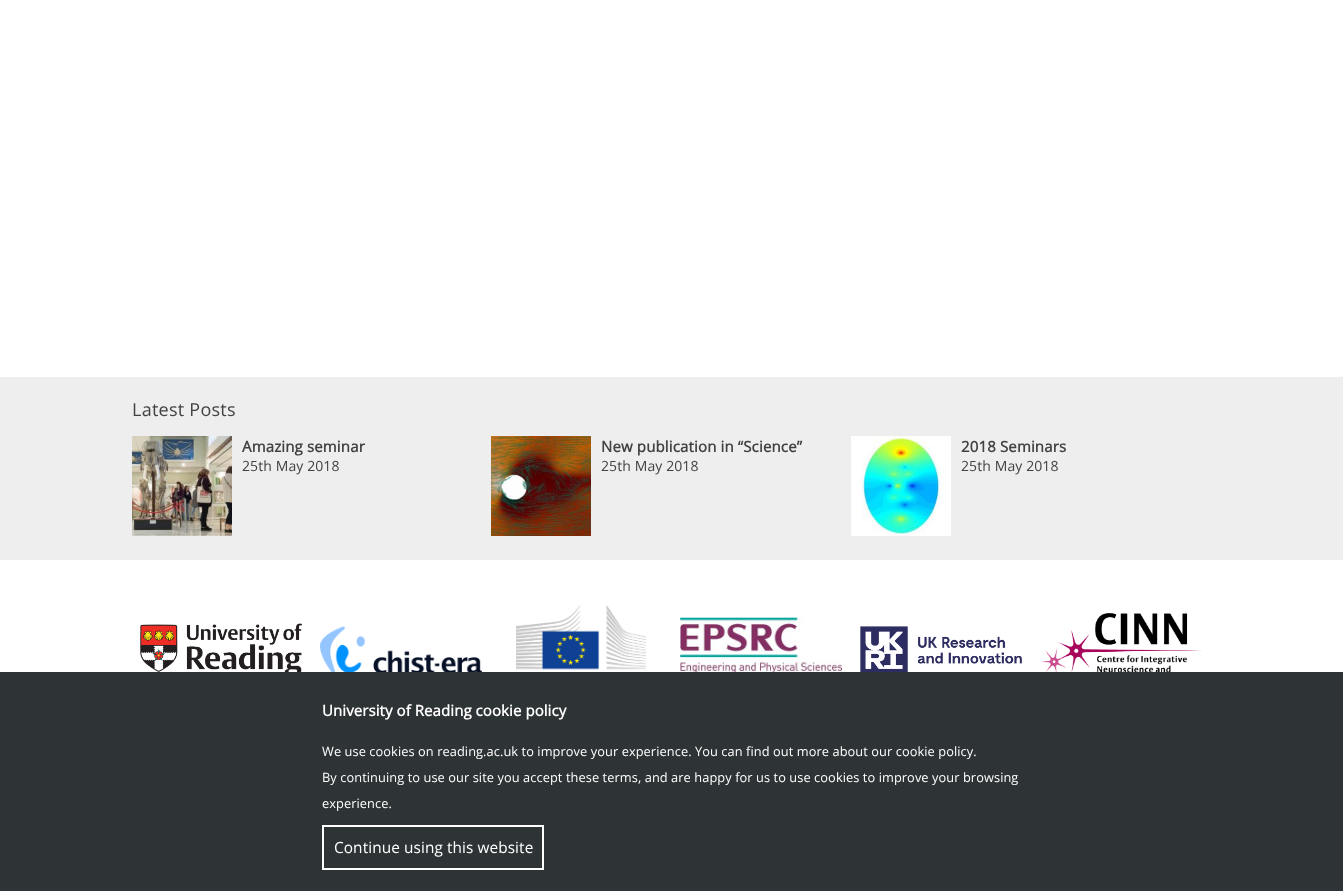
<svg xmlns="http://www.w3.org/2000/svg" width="1343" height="891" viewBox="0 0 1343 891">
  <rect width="100%" height="100%" fill="#fff"/>
  <path d="M0 377h1343v183H0z" fill="#eee"/>
  <image x="132" y="436" width="100" height="100" href="img/1.png"/>
  <image x="491" y="436" width="100" height="100" href="img/2.png"/>
  <image x="851" y="436" width="100" height="100" href="img/3.png"/>
  <image x="140" y="623" width="163" height="49" href="img/4.png"/>
  <image x="320" y="626" width="162" height="46" href="img/5.png"/>
  <image x="516" y="605" width="130" height="67" href="img/6.png"/>
  <image x="680" y="617" width="162" height="55" href="img/7.png"/>
  <image x="860" y="626" width="162" height="46" href="img/8.png"/>
  <image x="1040" y="613" width="162" height="59" href="img/9.png"/>
  <path d="M0 672h1343v219H0z" fill="#2e3336"/>
  <path d="M323 826h220v43H323z" fill="none" stroke="#fff" stroke-width="2"/>
  <text x="132" y="416" font-family="Open Sans" font-size="18" letter-spacing="0.25" fill="#434241">Latest Posts</text>
  <text x="242" y="452" font-family="Open Sans" font-size="15" font-weight="bold" letter-spacing="0.15" fill="#434241">Amazing seminar</text>
  <text x="242" y="471" font-family="Open Sans" font-size="14" letter-spacing="0.1" fill="#434241">25th May 2018</text>
  <text x="601" y="452" font-family="Open Sans" font-size="15" font-weight="bold" letter-spacing="0.15" fill="#434241">New publication in “Science”</text>
  <text x="601" y="471" font-family="Open Sans" font-size="14" letter-spacing="0.1" fill="#434241">25th May 2018</text>
  <text x="961" y="452" font-family="Open Sans" font-size="15" font-weight="bold" letter-spacing="0.15" fill="#434241">2018 Seminars</text>
  <text x="961" y="471" font-family="Open Sans" font-size="14" letter-spacing="0.1" fill="#434241">25th May 2018</text>
  <text x="322" y="716" font-family="Open Sans" font-size="15" font-weight="bold" letter-spacing="0.08" fill="#fff">University of Reading cookie policy</text>
  <g font-family="Open Sans" font-size="12.8" letter-spacing="0.08" fill="#fff">
    <text x="322" y="756">We use cookies on reading.ac.uk to improve your experience. You can find out more about our cookie policy.</text>
    <text x="322" y="782">By continuing to use our site you accept these terms, and are happy for us to use cookies to improve your browsing</text>
    <text x="322" y="808">experience.</text>
  </g>
  <text x="334" y="853" font-family="Open Sans" font-size="15.4" letter-spacing="0.08" fill="#fff">Continue using this website</text>
</svg>
